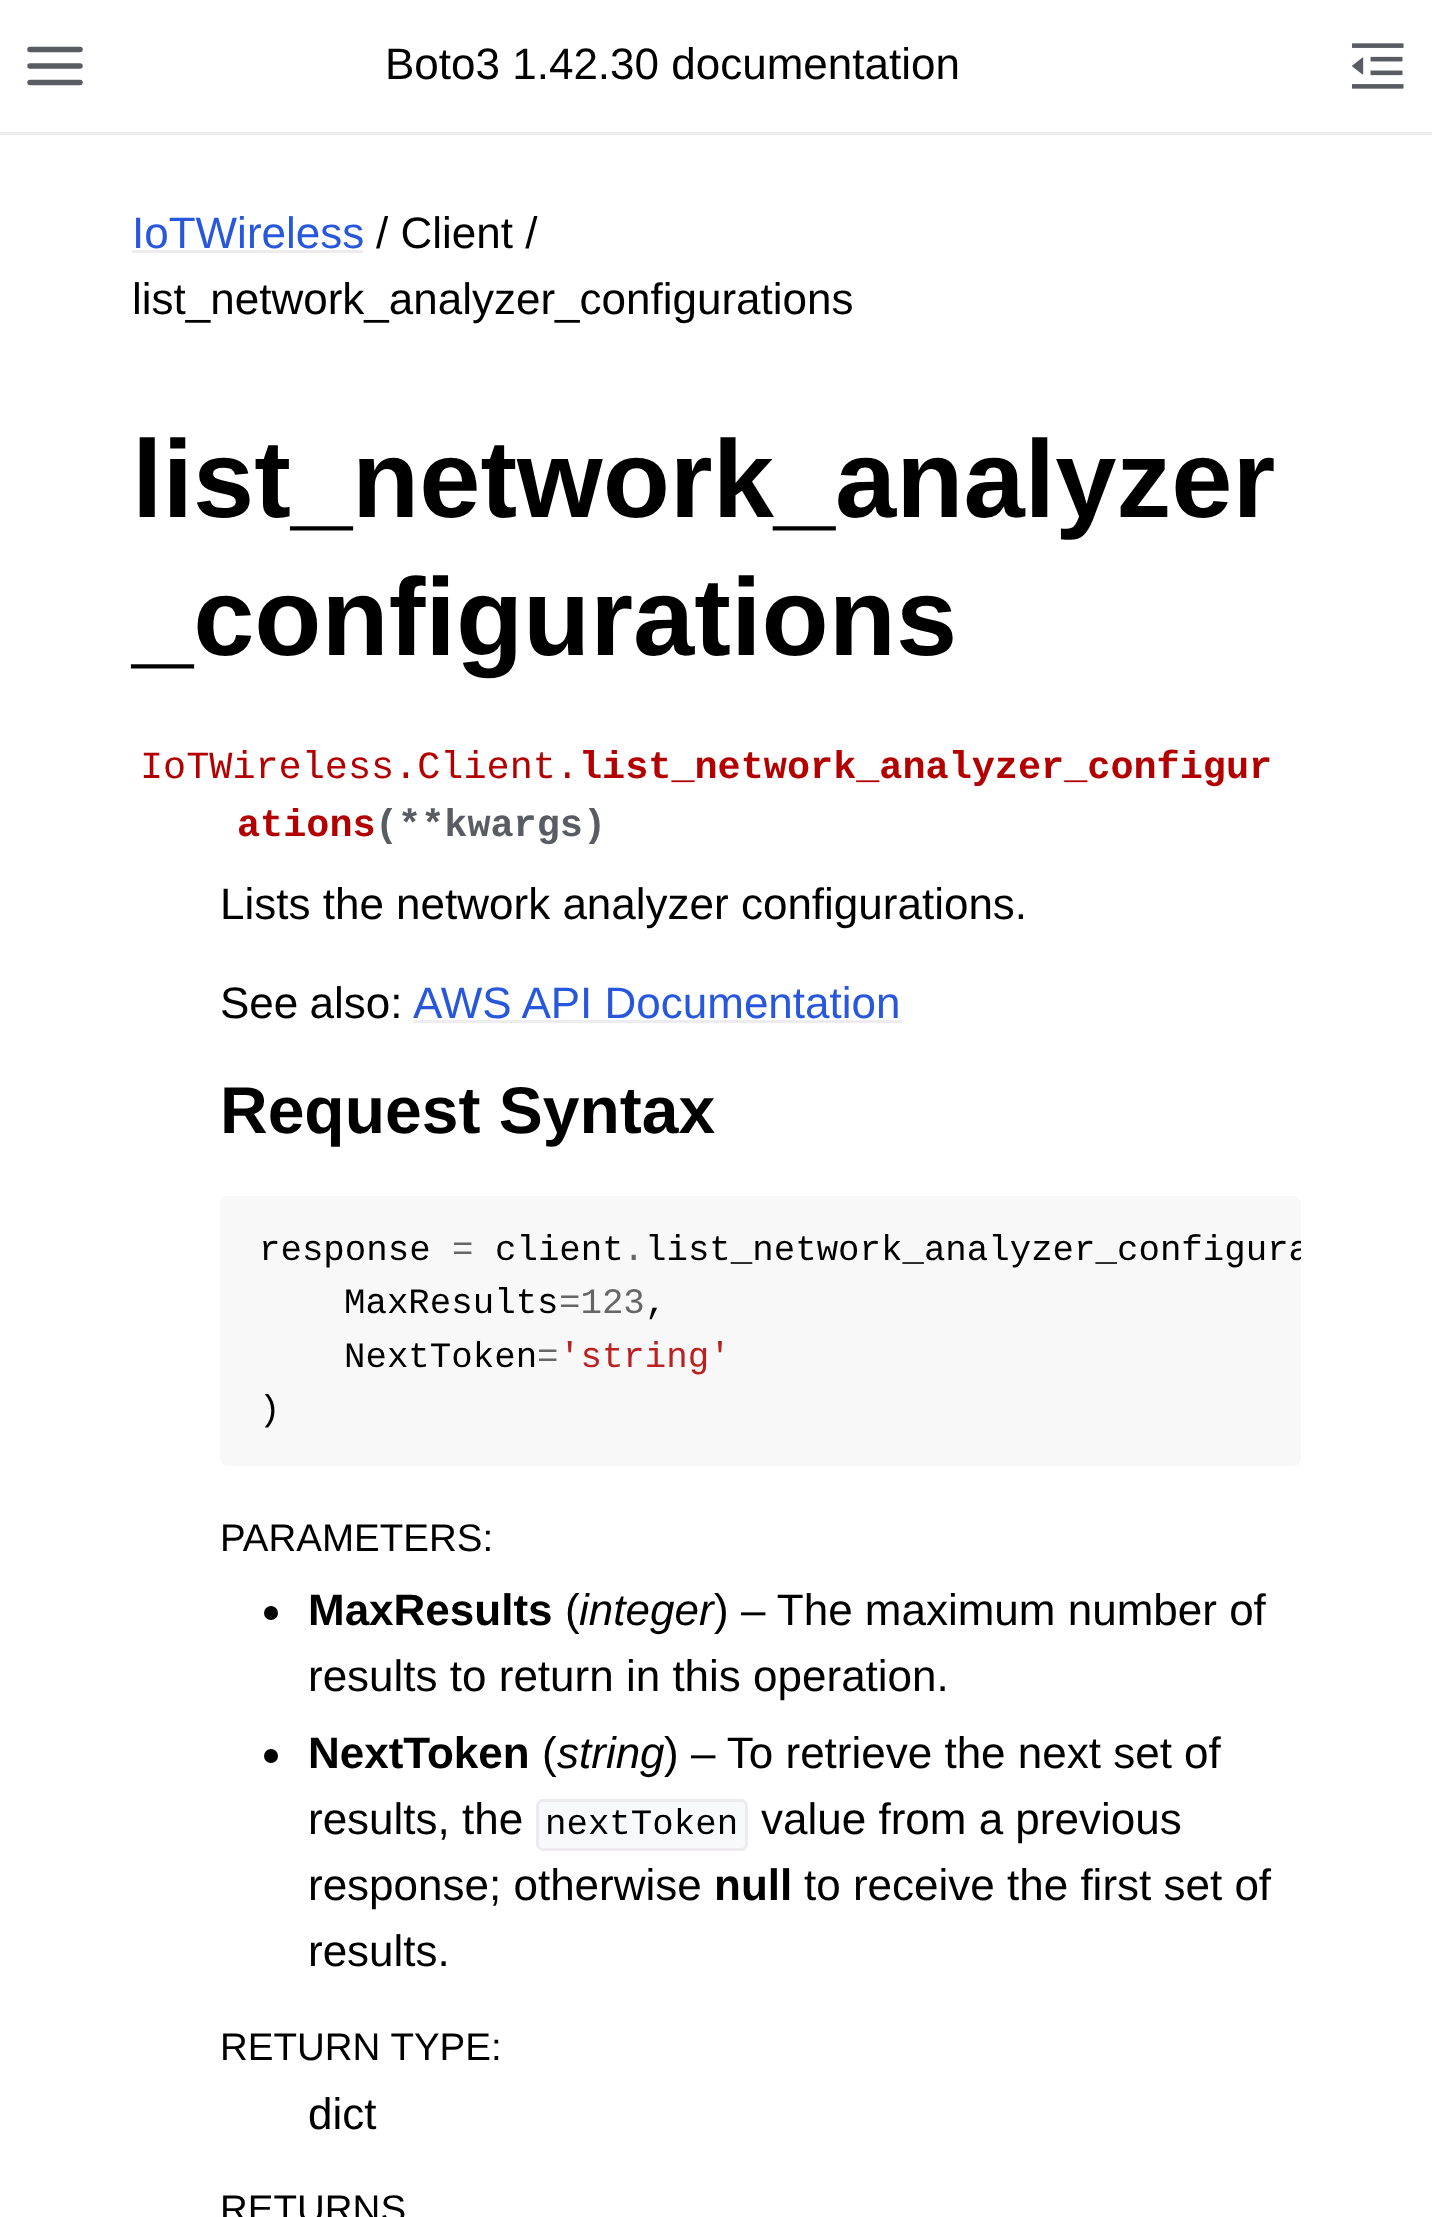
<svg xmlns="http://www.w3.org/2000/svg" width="1432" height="2217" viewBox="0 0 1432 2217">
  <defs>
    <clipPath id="clip1"><path d="M220 1196h1081v270H220z"/></clipPath>
  </defs>
  <rect width="100%" height="100%" fill="#fff"/>
  <path d="M0 132h1432v3H0z" fill="#eeebee"/>
  <path d="M30 66H80M30 49.5H80M30 82.5H80" fill="none" stroke="#5a5c63" stroke-width="5.5" stroke-linecap="round" stroke-linejoin="round"/>
  <image x="1351" y="43" width="53" height="46" href="img/1.png"/>
  <path d="M132 250h231v3H132z" fill="#eeebee"/>
  <path d="M413 1020h489v3H413z" fill="#eeebee"/>
  <rect x="220" y="1196" width="1081" height="270" rx="8" fill="#f8f8f8"/>
  <circle cx="271" cy="1613" r="7" fill="#000"/>
  <circle cx="271" cy="1756" r="7" fill="#000"/>
  <rect x="537.5" y="1800.5" width="209" height="49" rx="5.5" fill="#f8f9fb" stroke="#eeebee" stroke-width="3"/>
  <text x="385" y="79" font-family="Liberation Sans" font-size="44" fill="#000">Boto3 1.42.30 documentation</text>
  <text x="132" y="248" font-family="Liberation Sans" font-size="44" fill="#2757dd">IoTWireless</text>
  <g font-family="Liberation Sans" font-size="44" fill="#000">
    <text x="376" y="248">/ Client /</text>
    <text x="132" y="314">list_network_analyzer_configurations</text>
  </g>
  <g font-family="Liberation Sans" font-size="110" font-weight="bold" fill="#000">
    <text x="132" y="517">list_network_analyzer</text>
    <text x="132" y="655">_configurations</text>
  </g>
  <text x="140" y="778" font-family="Liberation Mono" font-size="38.5" fill="#b30000">IoTWireless.Client.</text>
  <g font-family="Liberation Mono" font-size="38.5" font-weight="bold" fill="#b30000">
    <text x="579" y="778">list_network_analyzer_configur</text>
    <text x="237" y="836">ations</text>
  </g>
  <text x="375" y="836" font-family="Liberation Mono" font-size="38.5" font-weight="bold" fill="#5a5c63">(**kwargs)</text>
  <g font-family="Liberation Sans" font-size="44" fill="#000">
    <text x="220" y="919">Lists the network analyzer configurations.</text>
    <text x="220" y="1018" word-spacing="-1">See also:</text>
  </g>
  <text x="413" y="1018" font-family="Liberation Sans" font-size="44" fill="#2757dd">AWS API Documentation</text>
  <text x="220" y="1133" font-family="Liberation Sans" font-size="66" font-weight="bold" fill="#000">Request Syntax</text>
  <text x="259" y="1260" font-family="Liberation Mono" font-size="35.75" fill="#000">response</text>
  <text x="452" y="1260" font-family="Liberation Mono" font-size="35.75" fill="#666">=</text>
  <text x="495" y="1260" font-family="Liberation Mono" font-size="35.75" fill="#000">client</text>
  <g clip-path="url(#clip1)">
    <text x="645" y="1260" font-family="Liberation Mono" font-size="35.75" fill="#000">list_network_analyzer_configura</text>
  </g>
  <text x="623" y="1260" font-family="Liberation Mono" font-size="35.75" fill="#666">.</text>
  <text x="344" y="1313" font-family="Liberation Mono" font-size="35.75" fill="#000">MaxResults</text>
  <text x="559" y="1313" font-family="Liberation Mono" font-size="35.75" fill="#666">=123</text>
  <g font-family="Liberation Mono" font-size="35.75" fill="#000">
    <text x="645" y="1313">,</text>
    <text x="344" y="1367">NextToken</text>
  </g>
  <text x="537" y="1367" font-family="Liberation Mono" font-size="35.75" fill="#666">=</text>
  <text x="559" y="1367" font-family="Liberation Mono" font-size="35.75" fill="#ba2121">'string'</text>
  <text x="259" y="1420" font-family="Liberation Mono" font-size="35.75" fill="#000">)</text>
  <text x="220" y="1551" font-family="Liberation Sans" font-size="38.5" fill="#000">PARAMETERS:</text>
  <text x="308" y="1625" font-family="Liberation Sans" font-size="44" font-weight="bold" fill="#000">MaxResults</text>
  <text x="565" y="1625" font-family="Liberation Sans" font-size="44" fill="#000">(</text>
  <text x="579" y="1625" font-family="Liberation Sans" font-size="44" font-style="italic" fill="#000">integer</text>
  <g font-family="Liberation Sans" font-size="44" fill="#000">
    <text x="714" y="1625">) – The maximum number of</text>
    <text x="308" y="1691">results to return in this operation.</text>
  </g>
  <text x="308" y="1768" font-family="Liberation Sans" font-size="44" font-weight="bold" fill="#000">NextToken</text>
  <text x="542" y="1768" font-family="Liberation Sans" font-size="44" fill="#000">(</text>
  <text x="557" y="1768" font-family="Liberation Sans" font-size="44" font-style="italic" fill="#000">string</text>
  <g font-family="Liberation Sans" font-size="44" fill="#000">
    <text x="664" y="1768">) – To retrieve the next set of</text>
    <text x="308" y="1834">results, the</text>
  </g>
  <text x="545" y="1834" font-family="Liberation Mono" font-size="35.75" fill="#000">nextToken</text>
  <g font-family="Liberation Sans" font-size="44" fill="#000">
    <text x="761" y="1834">value from a previous</text>
    <text x="308" y="1900">response; otherwise</text>
  </g>
  <text x="714" y="1900" font-family="Liberation Sans" font-size="44" font-weight="bold" fill="#000">null</text>
  <g font-family="Liberation Sans" font-size="44" fill="#000">
    <text x="804" y="1900">to receive the first set of</text>
    <text x="308" y="1966">results.</text>
  </g>
  <text x="220" y="2060" font-family="Liberation Sans" font-size="38.5" fill="#000">RETURN TYPE:</text>
  <text x="308" y="2129" font-family="Liberation Sans" font-size="44" fill="#000">dict</text>
  <text x="220" y="2222" font-family="Liberation Sans" font-size="38.5" fill="#000">RETURNS</text>
</svg>
